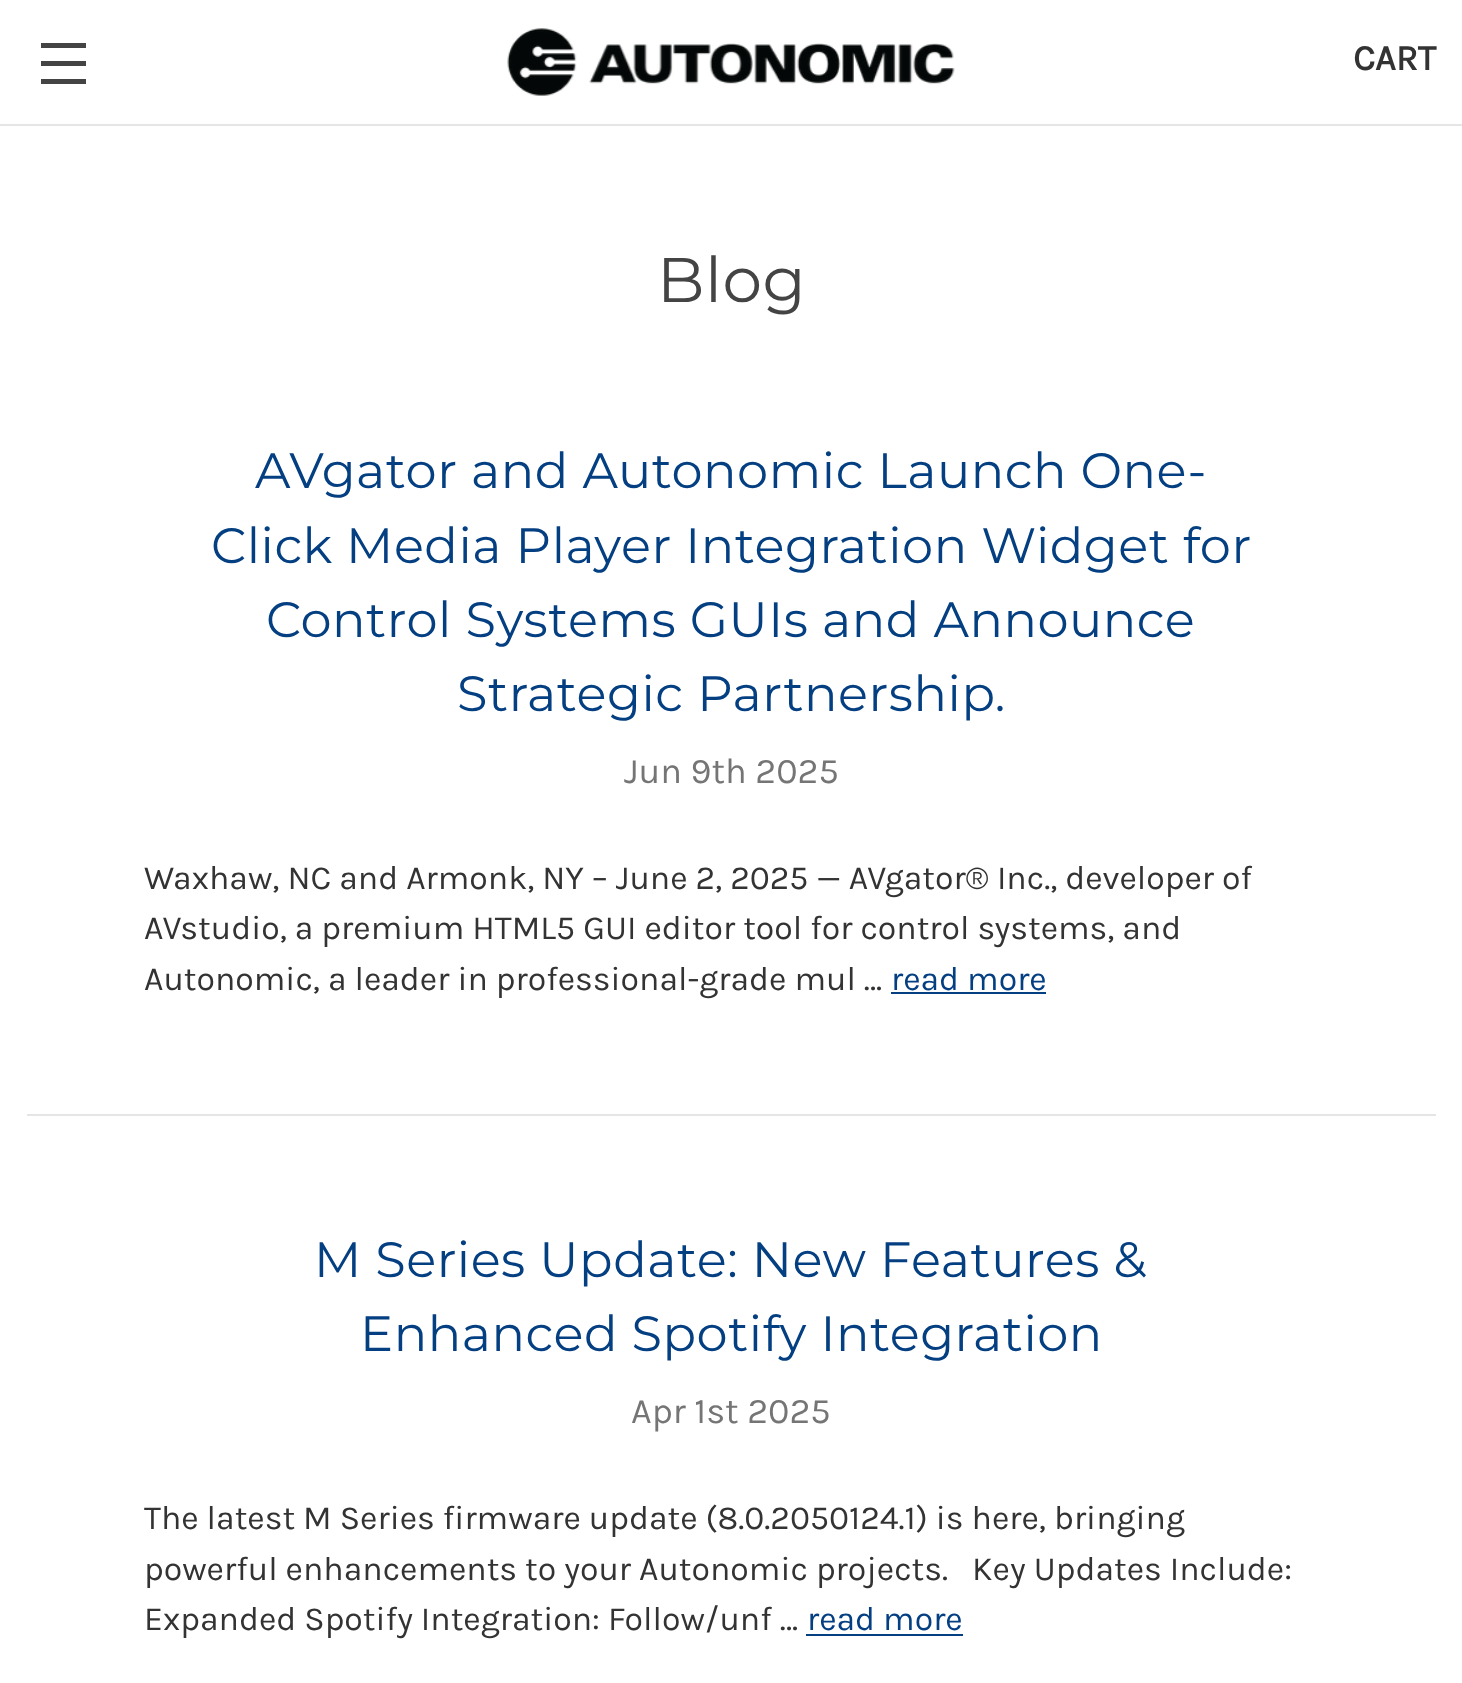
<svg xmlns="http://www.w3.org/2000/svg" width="1462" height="1683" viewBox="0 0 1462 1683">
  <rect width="100%" height="100%" fill="#fff"/>
  <path d="M0 124h1462v2H0z" fill="#e5e5e5"/>
  <path d="M41 61h45v5H41z" fill="#444"/>
  <path d="M41 43h45v5H41z" fill="#444"/>
  <path d="M41 79h45v5H41z" fill="#444"/>
  <image x="507" y="28" width="448" height="68" href="img/1.png"/>
  <path d="M891 992h155v2H891z" fill="#043f82"/>
  <path d="M27 1114h1409v2H27z" fill="#e5e5e5"/>
  <path d="M806 1634h157v2H806z" fill="#043f82"/>
  <text x="1353" y="70" font-family="Karla" font-size="36" font-weight="bold" fill="#333">CART</text>
  <text x="657" y="302" font-family="Montserrat" font-size="63" letter-spacing="0.55" fill="#444">Blog</text>
  <g font-family="Montserrat" font-size="49.5" letter-spacing="0.55" fill="#043f82">
    <text x="255" y="488">AVgator and Autonomic Launch One-</text>
    <text x="211" y="563">Click Media Player Integration Widget for</text>
    <text x="266" y="637">Control Systems GUIs and Announce</text>
    <text x="457" y="711">Strategic Partnership.</text>
  </g>
  <text x="624" y="783" font-family="Karla" font-size="36" fill="#757575">Jun 9th 2025</text>
  <g font-family="Karla" font-size="33.75" fill="#333">
    <text x="144" y="889">Waxhaw, NC and Armonk, NY – June 2, 2025 — AVgator® Inc., developer of</text>
    <text x="144" y="939">AVstudio, a premium HTML5 GUI editor tool for control systems, and</text>
    <text x="144" y="990">Autonomic, a leader in professional-grade mul …</text>
  </g>
  <text x="891" y="990" font-family="Karla" font-size="33.75" fill="#043f82">read more</text>
  <g font-family="Montserrat" font-size="49.5" letter-spacing="0.55" fill="#043f82">
    <text x="314" y="1277">M Series Update: New Features &amp;</text>
    <text x="360" y="1351">Enhanced Spotify Integration</text>
  </g>
  <text x="631" y="1423" font-family="Karla" font-size="36" fill="#757575">Apr 1st 2025</text>
  <g font-family="Karla" font-size="33.75" fill="#333">
    <text x="144" y="1529">The latest M Series firmware update (8.0.2050124.1) is here, bringing</text>
    <text x="144" y="1580" xml:space="preserve">powerful enhancements to your Autonomic projects.   Key Updates Include:</text>
    <text x="144" y="1630">Expanded Spotify Integration: Follow/unf …</text>
  </g>
  <text x="807" y="1630" font-family="Karla" font-size="33.75" fill="#043f82">read more</text>
</svg>
